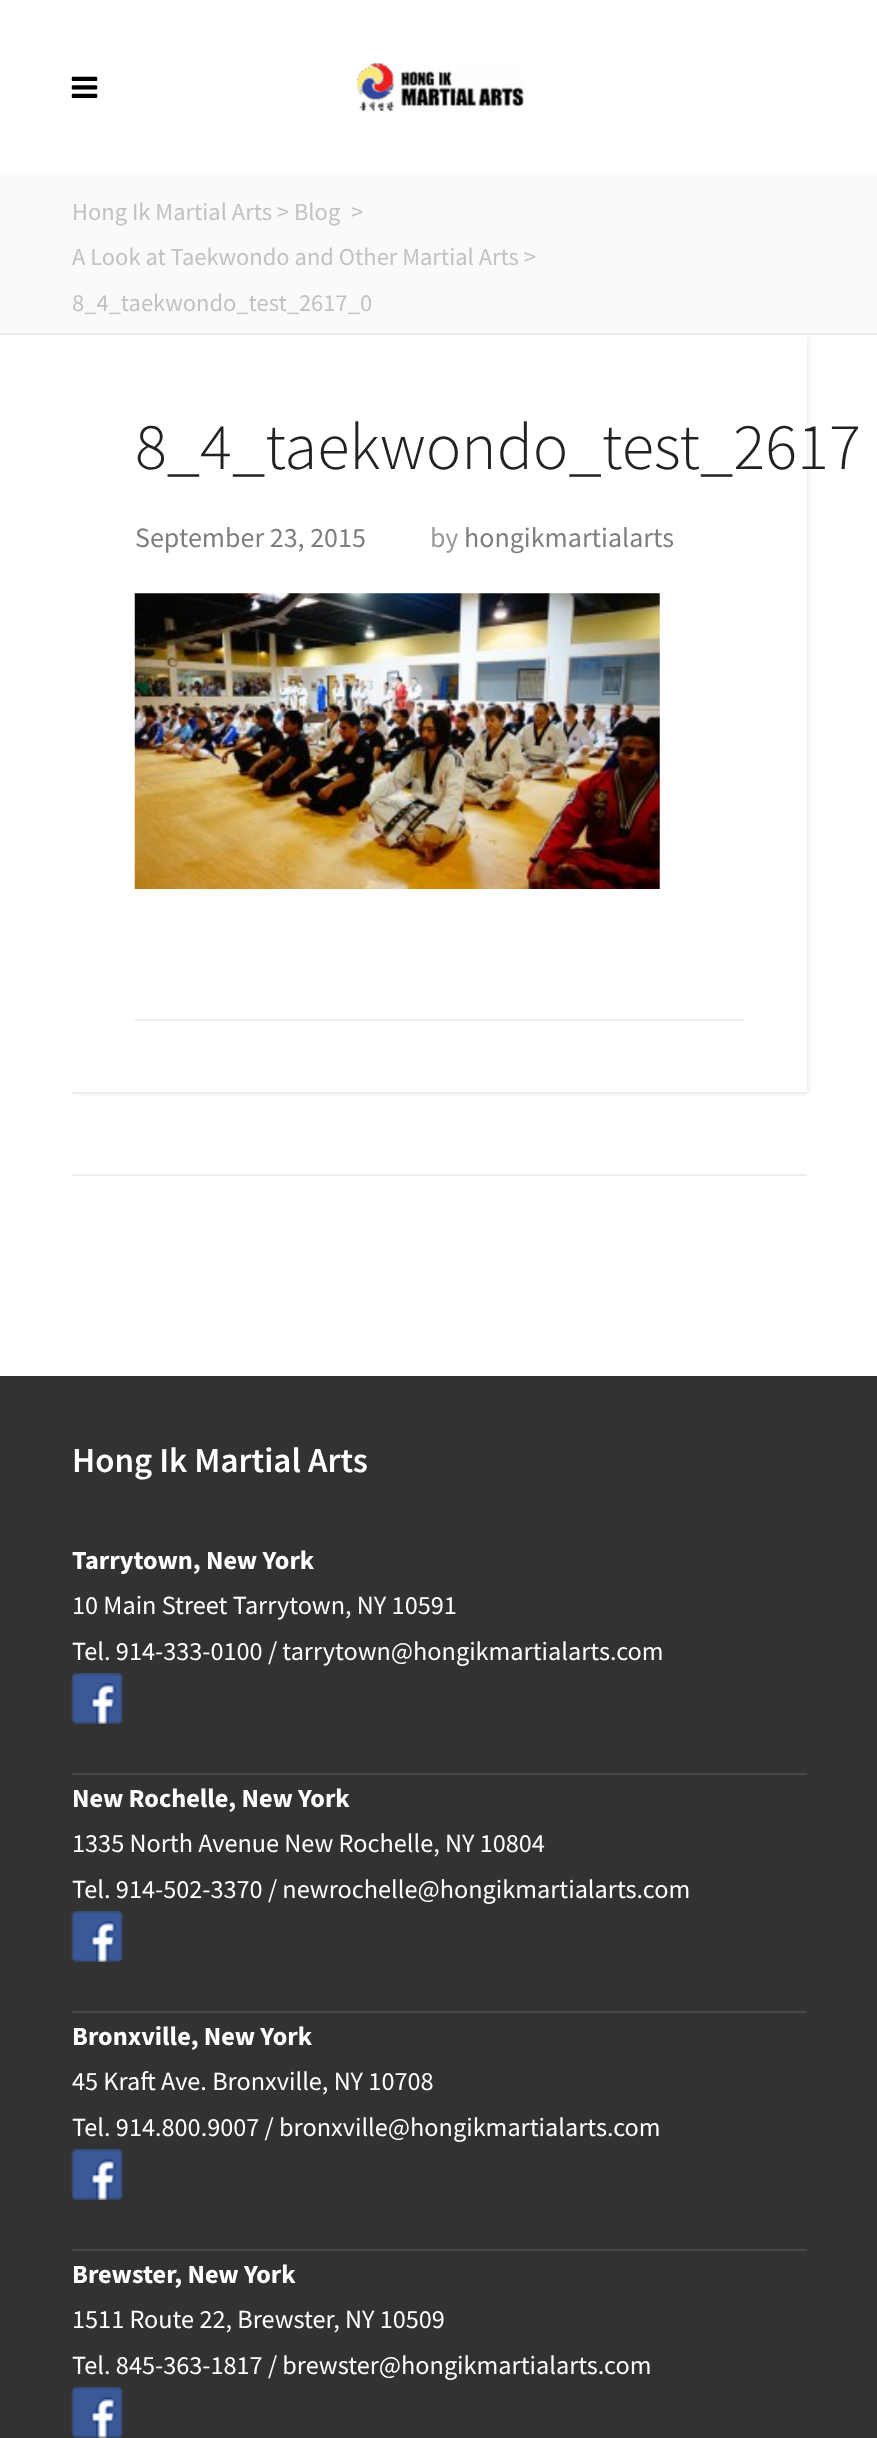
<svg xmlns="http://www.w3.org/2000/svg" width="877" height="2438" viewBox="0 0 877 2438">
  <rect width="100%" height="100%" fill="#fff"/>
  <image x="71" y="76" width="27" height="22" href="img/1.png"/>
  <image x="357" y="63" width="167" height="49" href="img/2.png"/>
  <path d="M74 336h735v758H74z" fill="#eee" filter="blur(2.5px)"/>
  <path d="M0 175h877v158H0z" fill="#fafafa"/>
  <path d="M0 333h877v2H0z" fill="#ebebeb"/>
  <path d="M72 335h735v757H72z" fill="#fff"/>
  <image x="134" y="593" width="526" height="296" href="img/3.png"/>
  <path d="M135 1019h609v2H135z" fill="#eee"/>
  <path d="M72 1092h735v2H72z" fill="#eee"/>
  <path d="M72 1174h735v2H72z" fill="#eee"/>
  <path d="M0 1376h877v1062H0z" fill="#323232"/>
  <path d="M72 1773h735v2H72z" fill="#484848"/>
  <image x="71" y="1673" width="52" height="51" href="img/4.png"/>
  <path d="M72 2011h735v2H72z" fill="#484848"/>
  <image x="71" y="1911" width="52" height="51" href="img/4.png"/>
  <path d="M72 2249h735v2H72z" fill="#484848"/>
  <image x="71" y="2149" width="52" height="51" href="img/4.png"/>
  <image x="71" y="2387" width="52" height="51" href="img/4.png"/>
  <g font-family="Source Sans Pro" font-size="24.5" fill="#c2c2c2">
    <text x="72" y="220">Hong Ik Martial Arts &gt; Blog</text>
    <text x="351" y="220">&gt;</text>
    <text x="72" y="265">A Look at Taekwondo and Other Martial Arts &gt;</text>
    <text x="72" y="311">8_4_taekwondo_test_2617_0</text>
  </g>
  <text x="135" y="469" font-family="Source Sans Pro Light" font-size="66.5" font-weight="300" fill="#222">8_4_taekwondo_test_2617</text>
  <text x="135" y="547" font-family="Source Sans Pro" font-size="28" fill="#7e7e7e">September 23, 2015</text>
  <text x="430" y="547" font-family="Source Sans Pro" font-size="28" fill="#999">by</text>
  <text x="464" y="547" font-family="Source Sans Pro" font-size="28" fill="#7e7e7e">hongikmartialarts</text>
  <text x="72" y="1472" font-family="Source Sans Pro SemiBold" font-size="35" font-weight="600" fill="#fff">Hong Ik Martial Arts</text>
  <text x="72" y="1569" font-family="Source Sans Pro" font-size="26.25" font-weight="bold" fill="#fff">Tarrytown, New York</text>
  <g font-family="Source Sans Pro" font-size="26.25" fill="#fff">
    <text x="72" y="1614">10 Main Street Tarrytown, NY 10591</text>
    <text x="72" y="1660">Tel. 914-333-0100 / tarrytown@hongikmartialarts.com</text>
  </g>
  <text x="72" y="1807" font-family="Source Sans Pro" font-size="26.25" font-weight="bold" fill="#fff">New Rochelle, New York</text>
  <g font-family="Source Sans Pro" font-size="26.25" fill="#fff">
    <text x="72" y="1852">1335 North Avenue New Rochelle, NY 10804</text>
    <text x="72" y="1898">Tel. 914-502-3370 / newrochelle@hongikmartialarts.com</text>
  </g>
  <text x="72" y="2045" font-family="Source Sans Pro" font-size="26.25" font-weight="bold" fill="#fff">Bronxville, New York</text>
  <g font-family="Source Sans Pro" font-size="26.25" fill="#fff">
    <text x="72" y="2090">45 Kraft Ave. Bronxville, NY 10708</text>
    <text x="72" y="2136">Tel. 914.800.9007 / bronxville@hongikmartialarts.com</text>
  </g>
  <text x="72" y="2283" font-family="Source Sans Pro" font-size="26.25" font-weight="bold" fill="#fff">Brewster, New York</text>
  <g font-family="Source Sans Pro" font-size="26.25" fill="#fff">
    <text x="72" y="2328">1511 Route 22, Brewster, NY 10509</text>
    <text x="72" y="2374">Tel. 845-363-1817 / brewster@hongikmartialarts.com</text>
  </g>
</svg>
